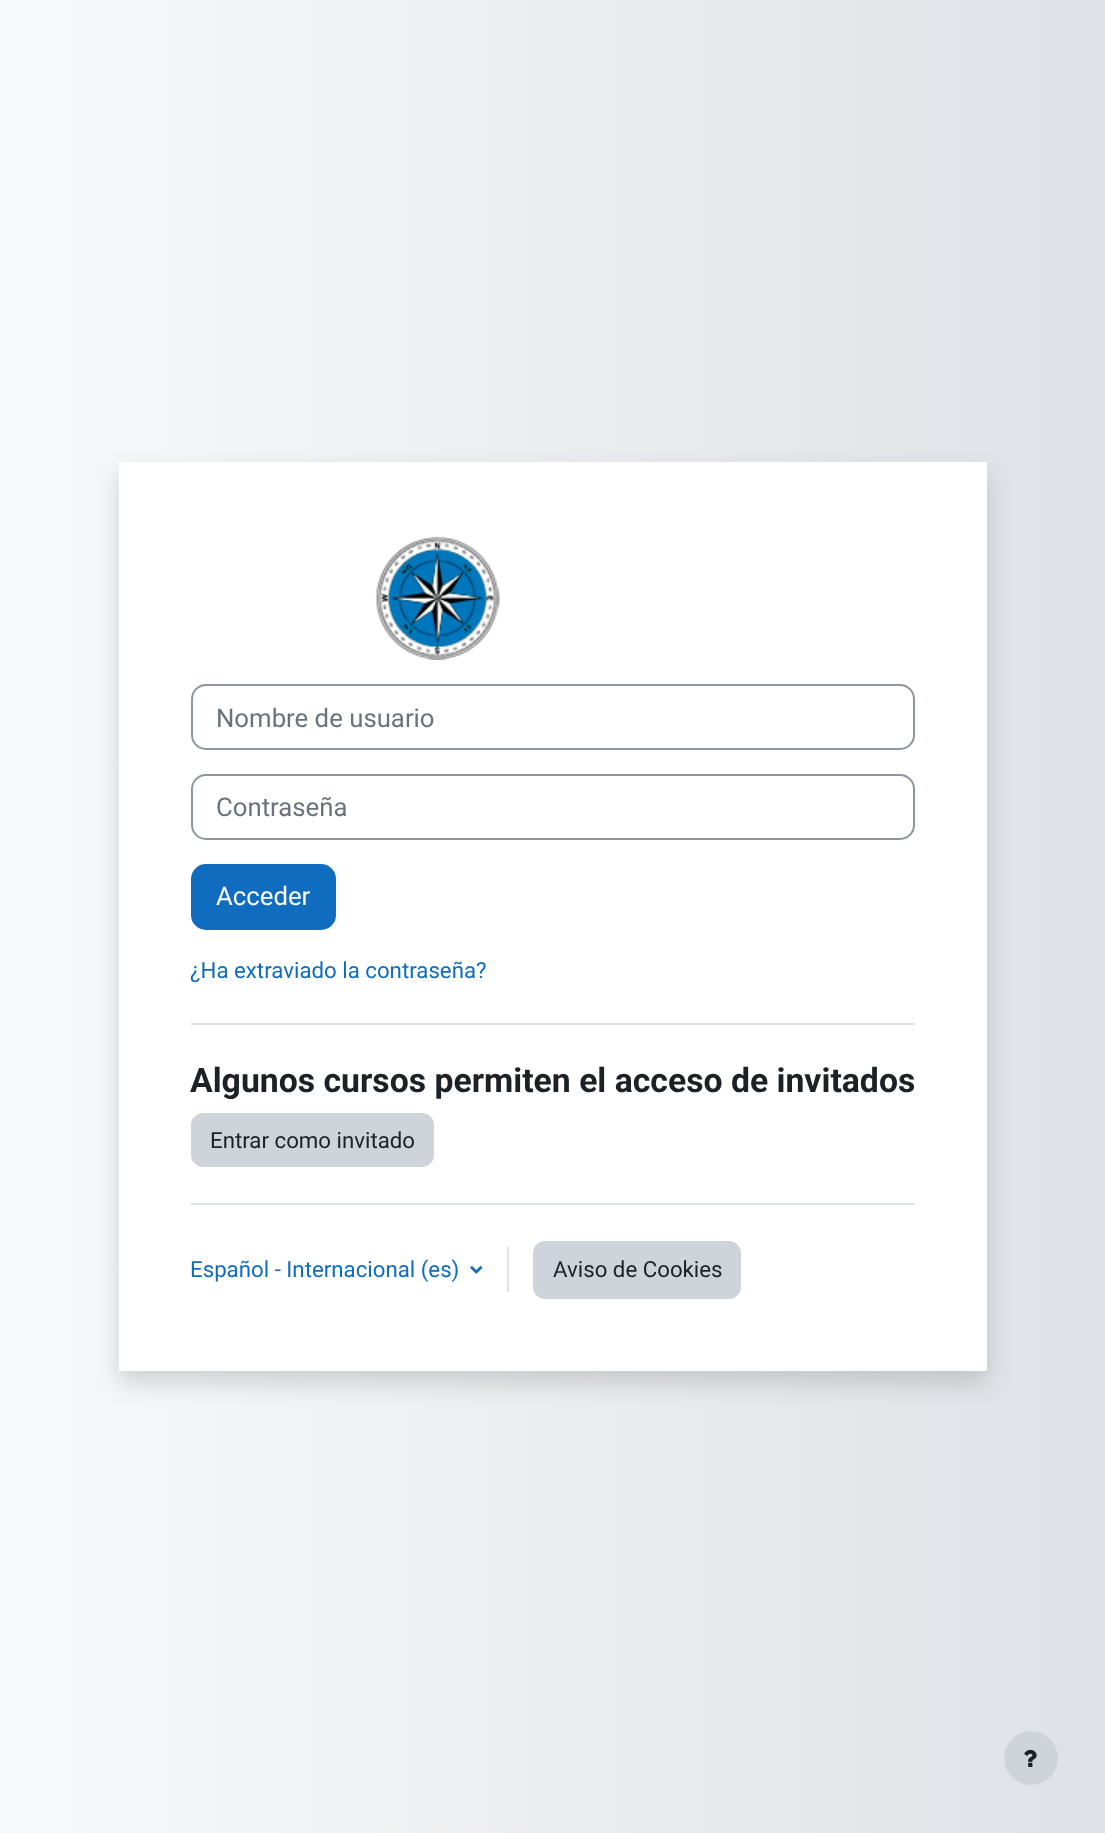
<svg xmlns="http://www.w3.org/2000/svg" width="1105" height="1833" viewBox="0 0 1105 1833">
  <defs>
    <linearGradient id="g1" gradientUnits="userSpaceOnUse" x1="0" y1="917" x2="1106" y2="917"><stop offset="0" stop-color="#f8f9fa"/><stop offset="1" stop-color="#dee2e6"/></linearGradient>
  </defs>
  <rect width="100%" height="100%" fill="#fff"/>
  <path d="M0 0h1105v1833H0z" fill="url(#g1)"/>
  <path d="M119 474h868v909H119z" fill="#00000026" filter="blur(12px)"/>
  <path d="M119 462h868v909H119z" fill="#fff"/>
  <image x="375" y="536" width="125" height="124" href="img/1.png"/>
  <rect x="192" y="685" width="722" height="64" rx="14" fill="none" stroke="#8f959e" stroke-width="2"/>
  <rect x="192" y="775" width="722" height="64" rx="14" fill="none" stroke="#8f959e" stroke-width="2"/>
  <rect x="192" y="865" width="143" height="64" rx="14" fill="#0f6cbf" stroke="#0f6cbf" stroke-width="2"/>
  <path d="M191 1023h724v2H191z" fill="#dee2e6"/>
  <rect x="192" y="1114" width="241" height="52" rx="11" fill="#ced4da" stroke="#ced4da" stroke-width="2"/>
  <path d="M191 1203h724v2H191z" fill="#dee2e6"/>
  <image x="470" y="1266" width="13" height="8" href="img/2.png"/>
  <path d="M507 1247h2v45H507z" fill="#dee2e6"/>
  <rect x="534" y="1242" width="206" height="56" rx="11" fill="#ced4da" stroke="#ced4da" stroke-width="2"/>
  <circle cx="1031" cy="1758" r="27" fill="#ced4da"/>
  <image x="1024" y="1749" width="13" height="18" href="img/3.png"/>
  <g font-family="Roboto" font-size="25.75" fill="#6a737b">
    <text x="216" y="727">Nombre de usuario</text>
    <text x="216" y="816">Contraseña</text>
  </g>
  <text x="216" y="905" font-family="Roboto" font-size="25.75" fill="#fff">Acceder</text>
  <text x="190" y="978" font-family="Roboto" font-size="22.25" fill="#0f6cbf">¿Ha extraviado la contraseña?</text>
  <text x="190" y="1092" font-family="Roboto" font-size="33.75" font-weight="bold" fill="#1d2125">Algunos cursos permiten el acceso de invitados</text>
  <text x="210" y="1148" font-family="Roboto" font-size="22.25" fill="#1d2125">Entrar como invitado</text>
  <text x="190" y="1277" font-family="Roboto" font-size="22.25" fill="#0f6cbf">Español - Internacional (es)</text>
  <text x="553" y="1277" font-family="Roboto" font-size="22.25" fill="#1d2125">Aviso de Cookies</text>
</svg>
